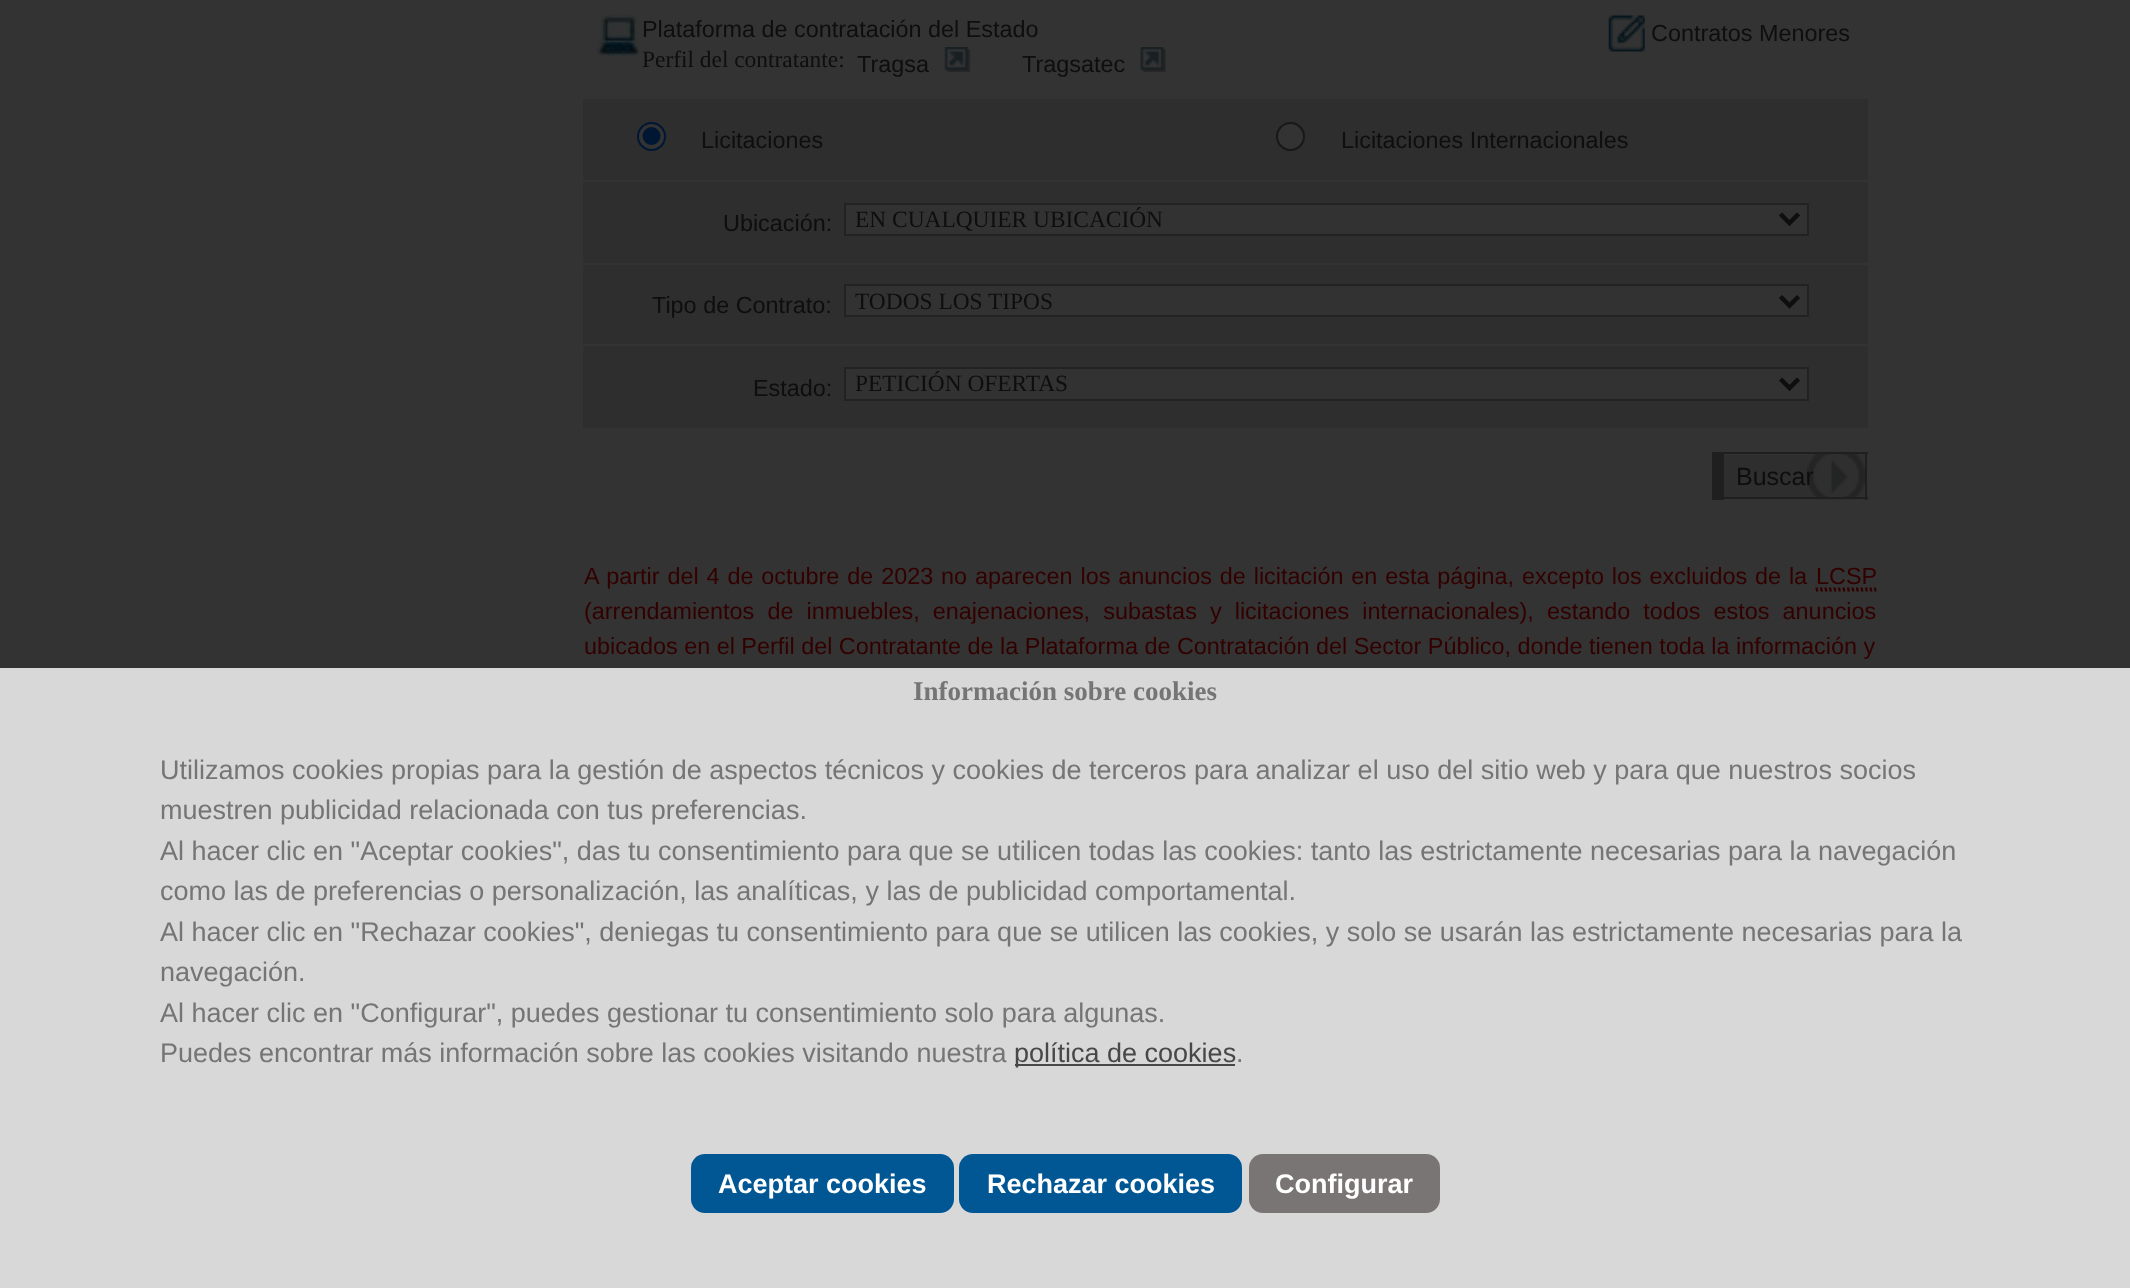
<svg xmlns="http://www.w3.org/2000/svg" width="2130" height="1288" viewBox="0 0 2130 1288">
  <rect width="100%" height="100%" fill="#333"/>
  <image x="596" y="15" width="43" height="41" href="img/1.png"/>
  <image x="944" y="47" width="27" height="25" href="img/2.png"/>
  <image x="1140" y="47" width="26" height="25" href="img/3.png"/>
  <image x="1608" y="15" width="37" height="37" href="img/4.png"/>
  <path d="M583 99h1285v81H583z" fill="#2e2e2e"/>
  <circle cx="651.5" cy="136.5" r="13.5" fill="#333" stroke="#001733" stroke-width="2"/>
  <circle cx="651.5" cy="136" r="9" fill="#001733"/>
  <circle cx="1290.5" cy="136.5" r="13.5" fill="#333" stroke="#181818" stroke-width="2"/>
  <path d="M583 182h1285v81H583z" fill="#2e2e2e"/>
  <path d="M845 204h963v31H845z" fill="#323232" stroke="#222" stroke-width="2"/>
  <path d="M1780.5 214L1789.5 223L1798.5 214" fill="none" stroke="#0e0e0e" stroke-width="4.5"/>
  <path d="M583 265h1285v79H583z" fill="#2e2e2e"/>
  <path d="M845 285h963v31H845z" fill="#323232" stroke="#222" stroke-width="2"/>
  <path d="M1780.5 296.5L1789.5 305.5L1798.5 296.5" fill="none" stroke="#0e0e0e" stroke-width="4.5"/>
  <path d="M583 346h1285v82H583z" fill="#2e2e2e"/>
  <path d="M845 368h963v32H845z" fill="#323232" stroke="#222" stroke-width="2"/>
  <path d="M1780.5 379L1789.5 388L1798.5 379" fill="none" stroke="#0e0e0e" stroke-width="4.5"/>
  <path d="M1724 455h83v42H1724z" fill="#2e2e2e"/>
  <image x="1806" y="454" width="59" height="46" href="img/5.png"/>
  <path d="M1724 452h144v2H1724z" fill="#1f1f1f"/>
  <path d="M1865 452h2v48H1865z" fill="#1f1f1f"/>
  <path d="M1724 497h144v2H1724z" fill="#1f1f1f"/>
  <path d="M1712 452h12v48H1712z" fill="#1f1f1f"/>
  <path d="M1816 590.5H1876.5M1815.5 588.5H1876" fill="none" stroke="#300" stroke-width="2.2" stroke-dasharray="2.25 2.25"/>
  <path d="M0 668h2130v620H0z" fill="#d8d8d8"/>
  <path d="M1015 1064h220v2H1015z" fill="#484848"/>
  <rect x="691" y="1154" width="263" height="59" rx="14" fill="#005794"/>
  <rect x="959" y="1154" width="283" height="59" rx="14" fill="#005794"/>
  <rect x="1249" y="1154" width="191" height="59" rx="14" fill="#7a7575"/>
  <text x="642" y="37" font-family="Liberation Sans" font-size="23.4" fill="#0e0e0e">Plataforma de contratación del Estado</text>
  <text x="642" y="67" font-family="Liberation Serif" font-size="23.4" fill="#0e0e0e">Perfil del contratante:</text>
  <g font-family="Liberation Sans" font-size="23.4" fill="#0e0e0e">
    <text x="857" y="72">Tragsa</text>
    <text x="1022" y="72">Tragsatec</text>
    <text x="1651" y="41">Contratos Menores</text>
    <text x="701" y="148">Licitaciones</text>
    <text x="1341" y="148">Licitaciones Internacionales</text>
    <text x="723" y="231">Ubicación:</text>
  </g>
  <text x="855" y="227" font-family="Liberation Serif" font-size="23.4" fill="#0e0e0e">EN CUALQUIER UBICACIÓN</text>
  <text x="652" y="313" font-family="Liberation Sans" font-size="23.4" fill="#0e0e0e">Tipo de Contrato:</text>
  <text x="855" y="309" font-family="Liberation Serif" font-size="23.4" fill="#0e0e0e">TODOS LOS TIPOS</text>
  <text x="753" y="396" font-family="Liberation Sans" font-size="23.4" fill="#0e0e0e">Estado:</text>
  <text x="855" y="391" font-family="Liberation Serif" font-size="23.4" fill="#0e0e0e">PETICIÓN OFERTAS</text>
  <text x="1736" y="485" font-family="Liberation Sans" font-size="25" fill="#0e0e0e">Buscar</text>
  <g font-family="Liberation Sans" font-size="23.4" fill="#300">
    <text x="584" y="584" word-spacing="1.4">A partir del 4 de octubre de 2023 no aparecen los anuncios de licitación en esta página, excepto los excluidos de la</text>
    <text x="1816" y="584">LCSP</text>
    <text x="584" y="619" word-spacing="6.6">(arrendamientos de inmuebles, enajenaciones, subastas y licitaciones internacionales), estando todos estos anuncios</text>
    <text x="584" y="654">ubicados en el Perfil del Contratante de la Plataforma de Contratación del Sector Público, donde tienen toda la información y</text>
  </g>
  <text x="913" y="700" font-family="Liberation Serif" font-size="27" font-weight="bold" fill="#757575">Información sobre cookies</text>
  <g font-family="Liberation Sans" font-size="27" fill="#757575">
    <text x="160" y="779">Utilizamos cookies propias para la gestión de aspectos técnicos y cookies de terceros para analizar el uso del sitio web y para que nuestros socios</text>
    <text x="160" y="819">muestren publicidad relacionada con tus preferencias.</text>
    <text x="160" y="860">Al hacer clic en "Aceptar cookies", das tu consentimiento para que se utilicen todas las cookies: tanto las estrictamente necesarias para la navegación</text>
    <text x="160" y="900">como las de preferencias o personalización, las analíticas, y las de publicidad comportamental.</text>
    <text x="160" y="941">Al hacer clic en "Rechazar cookies", deniegas tu consentimiento para que se utilicen las cookies, y solo se usarán las estrictamente necesarias para la</text>
    <text x="160" y="981">navegación.</text>
    <text x="160" y="1022">Al hacer clic en "Configurar", puedes gestionar tu consentimiento solo para algunas.</text>
    <text x="160" y="1062">Puedes encontrar más información sobre las cookies visitando nuestra</text>
  </g>
  <text x="1014" y="1062" font-family="Liberation Sans" font-size="27" fill="#484848">política de cookies</text>
  <text x="1236" y="1062" font-family="Liberation Sans" font-size="27" fill="#757575">.</text>
  <g font-family="Liberation Sans" font-size="27" font-weight="bold" fill="#fff">
    <text x="718" y="1193">Aceptar cookies</text>
    <text x="987" y="1193">Rechazar cookies</text>
    <text x="1275" y="1193">Configurar</text>
  </g>
</svg>
